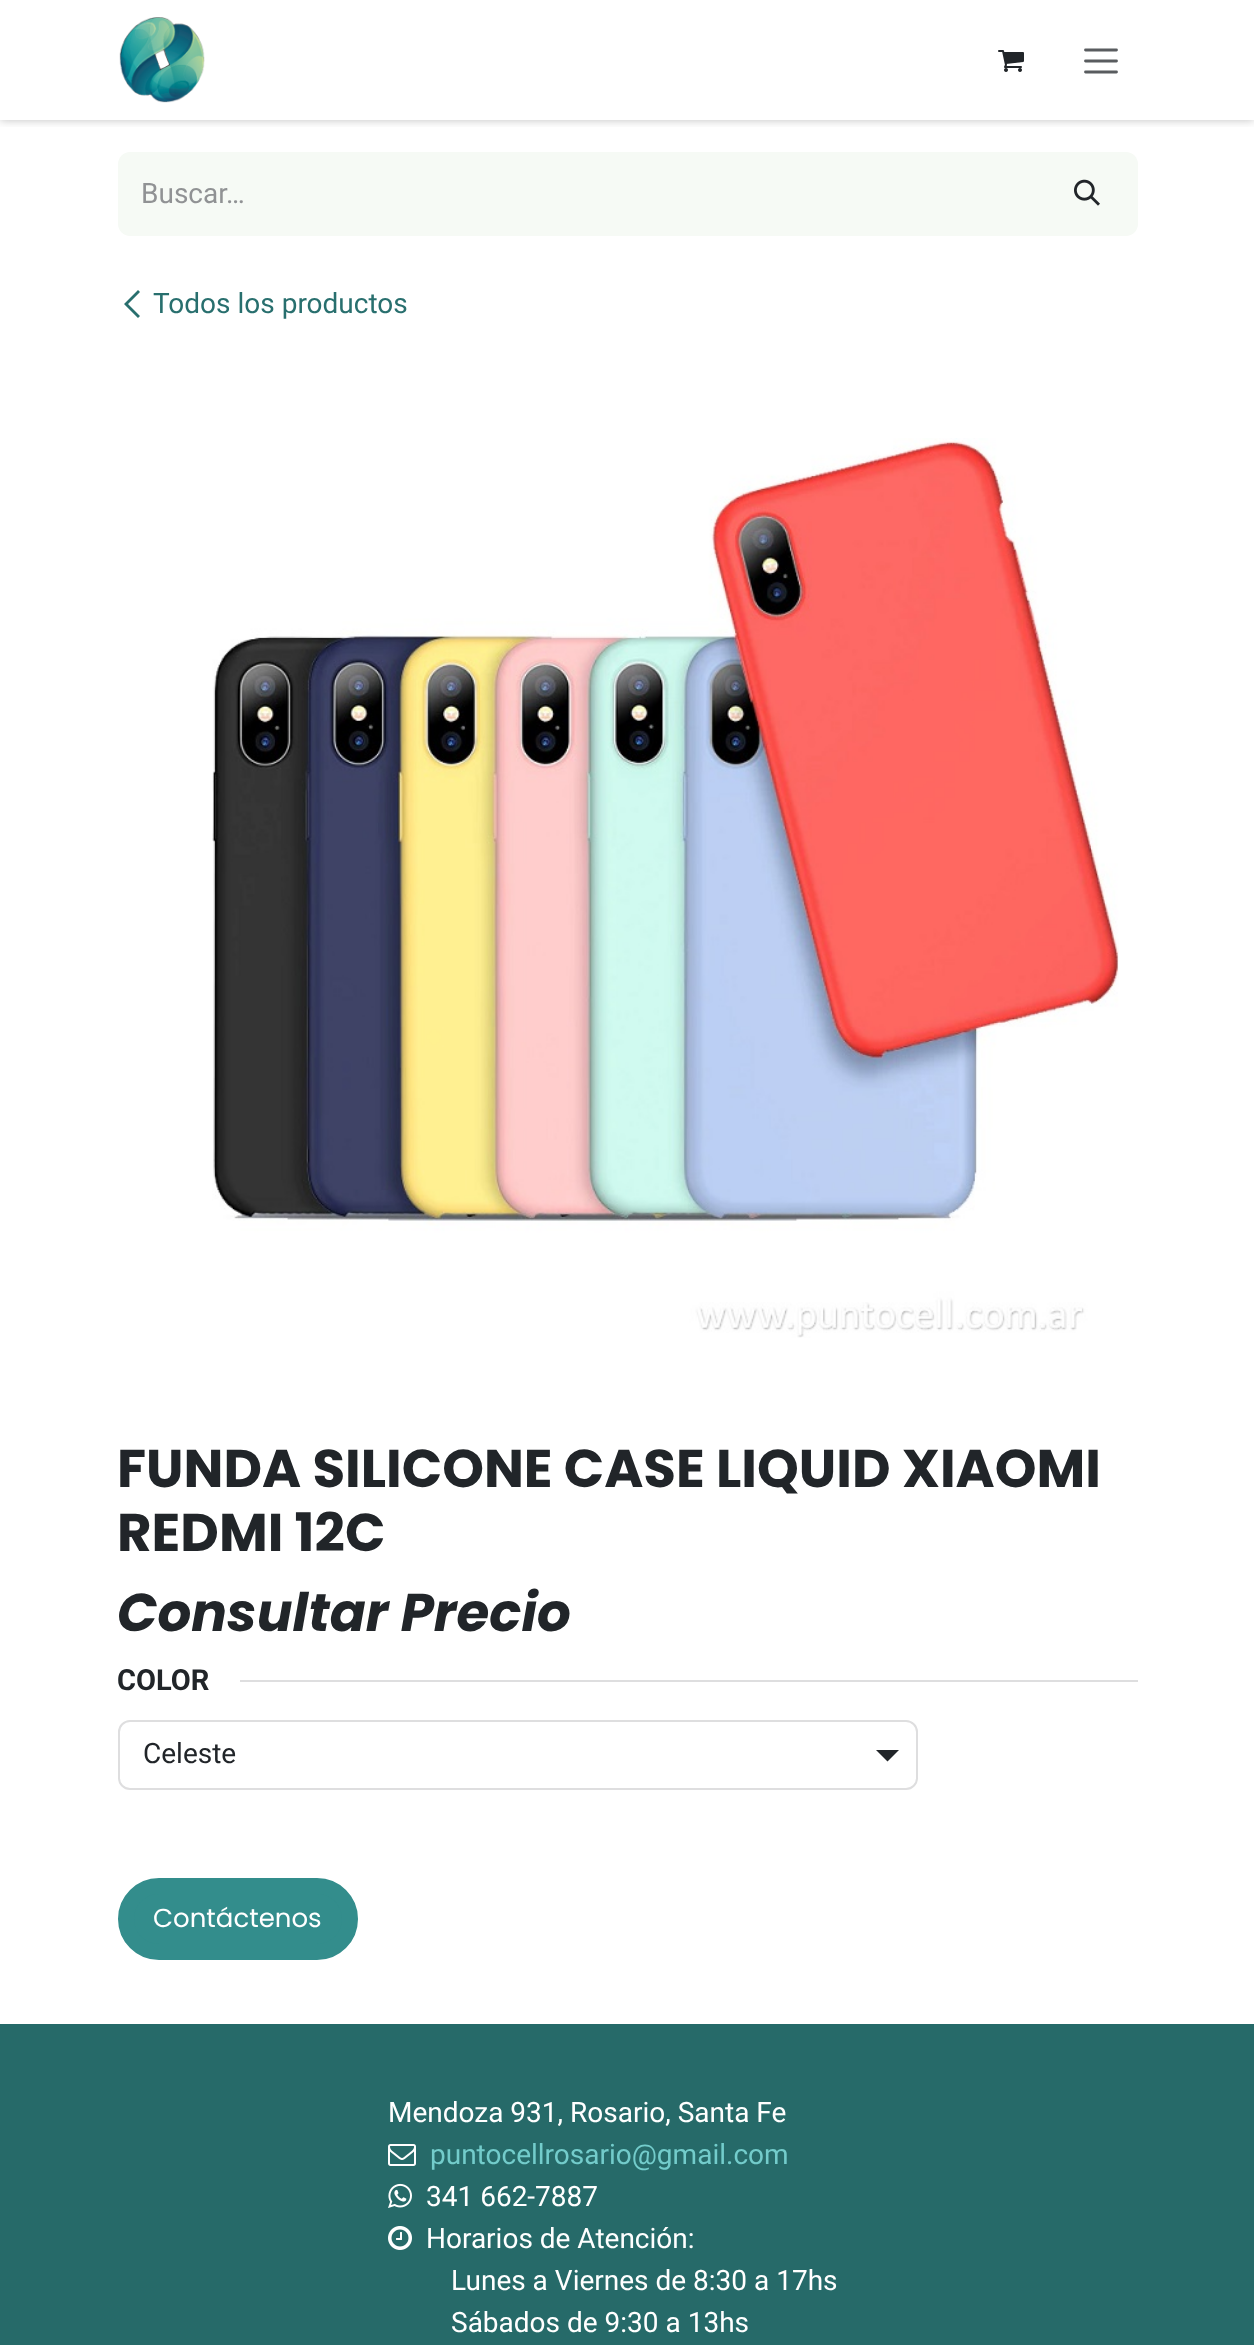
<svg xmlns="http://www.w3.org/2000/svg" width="1254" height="2345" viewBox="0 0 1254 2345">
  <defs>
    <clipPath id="clip1"><path d="M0 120h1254v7H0z"/></clipPath>
  </defs>
  <rect width="100%" height="100%" fill="#fff"/>
  <g clip-path="url(#clip1)">
    <path d="M0 0h1254v120H0z" fill="#00000040" filter="blur(5px)"/>
  </g>
  <image x="119" y="17" width="86" height="86" href="img/1.png"/>
  <image x="998" y="50" width="26" height="22" href="img/2.png"/>
  <path d="M1085.5 50H1116.5M1085.5 61H1116.5M1085.5 72H1116.5" fill="none" stroke="#595c5f" stroke-width="2.8" stroke-linecap="round"/>
  <path d="M130 152H1040V236H130C123.5 236 118 230.5 118 224V164C118 157.5 123.5 152 130 152Z" fill="#f6faf5"/>
  <path d="M1038 152H1126C1132.5 152 1138 157.5 1138 164V224C1138 230.5 1132.5 236 1126 236H1038Z" fill="#f6faf5"/>
  <image x="1074" y="179" width="26" height="27" href="img/3.png"/>
  <path d="M124 304L138 290L140 292L128 304L140 316L138 318Z" fill="#286f6e"/>
  <image x="212" y="438" width="907" height="900" href="img/4.png"/>
  <path d="M240 1680h898v2H240z" fill="#dededf"/>
  <path d="M876 1750H899L887.5 1761.5Z" fill="#212529"/>
  <rect x="119" y="1721" width="798" height="68" rx="11" fill="none" stroke="#dededf" stroke-width="2"/>
  <rect x="126" y="1886" width="224" height="66" rx="33" fill="#338d8c" stroke="#338d8c" stroke-width="16"/>
  <path d="M0 2024h1254v321H0z" fill="#266a69"/>
  <image x="388" y="2144" width="28" height="22" href="img/5.png"/>
  <image x="388" y="2183" width="24" height="25" href="img/6.png"/>
  <image x="388" y="2226" width="24" height="24" href="img/7.png"/>
  <text x="141" y="203" font-family="Roboto" font-size="28" fill="#909294">Buscar…</text>
  <text x="153" y="313" font-family="Roboto" font-size="28" fill="#286f6e">Todos los productos</text>
  <g font-family="Poppins" font-size="53.1" font-weight="bold" fill="#212529">
    <text x="117" y="1487">FUNDA SILICONE CASE LIQUID</text>
    <text x="902" y="1487">XIAOMI</text>
    <text x="117" y="1551">REDMI 12C</text>
  </g>
  <text x="117" y="1631" font-family="Poppins" font-size="53.1" font-weight="bold" font-style="italic" fill="#212529">Consultar Precio</text>
  <text x="117" y="1690" font-family="Roboto" font-size="29" font-weight="bold" fill="#212529">COLOR</text>
  <text x="143" y="1763" font-family="Roboto" font-size="28" fill="#212529">Celeste</text>
  <text x="153" y="1927" font-family="Poppins" font-size="26" fill="#fff">Contáctenos</text>
  <text x="388" y="2122" font-family="Roboto" font-size="28" fill="#fff">Mendoza 931, Rosario, Santa Fe</text>
  <text x="430" y="2164" font-family="Roboto" font-size="28" fill="#73cccb">puntocellrosario@gmail.com</text>
  <g font-family="Roboto" font-size="28" fill="#fff">
    <text x="426" y="2206">341 662-7887</text>
    <text x="426" y="2248">Horarios de Atención:</text>
    <text x="451" y="2290">Lunes a Viernes de 8:30 a 17hs</text>
    <text x="451" y="2332">Sábados de 9:30 a 13hs</text>
  </g>
</svg>
